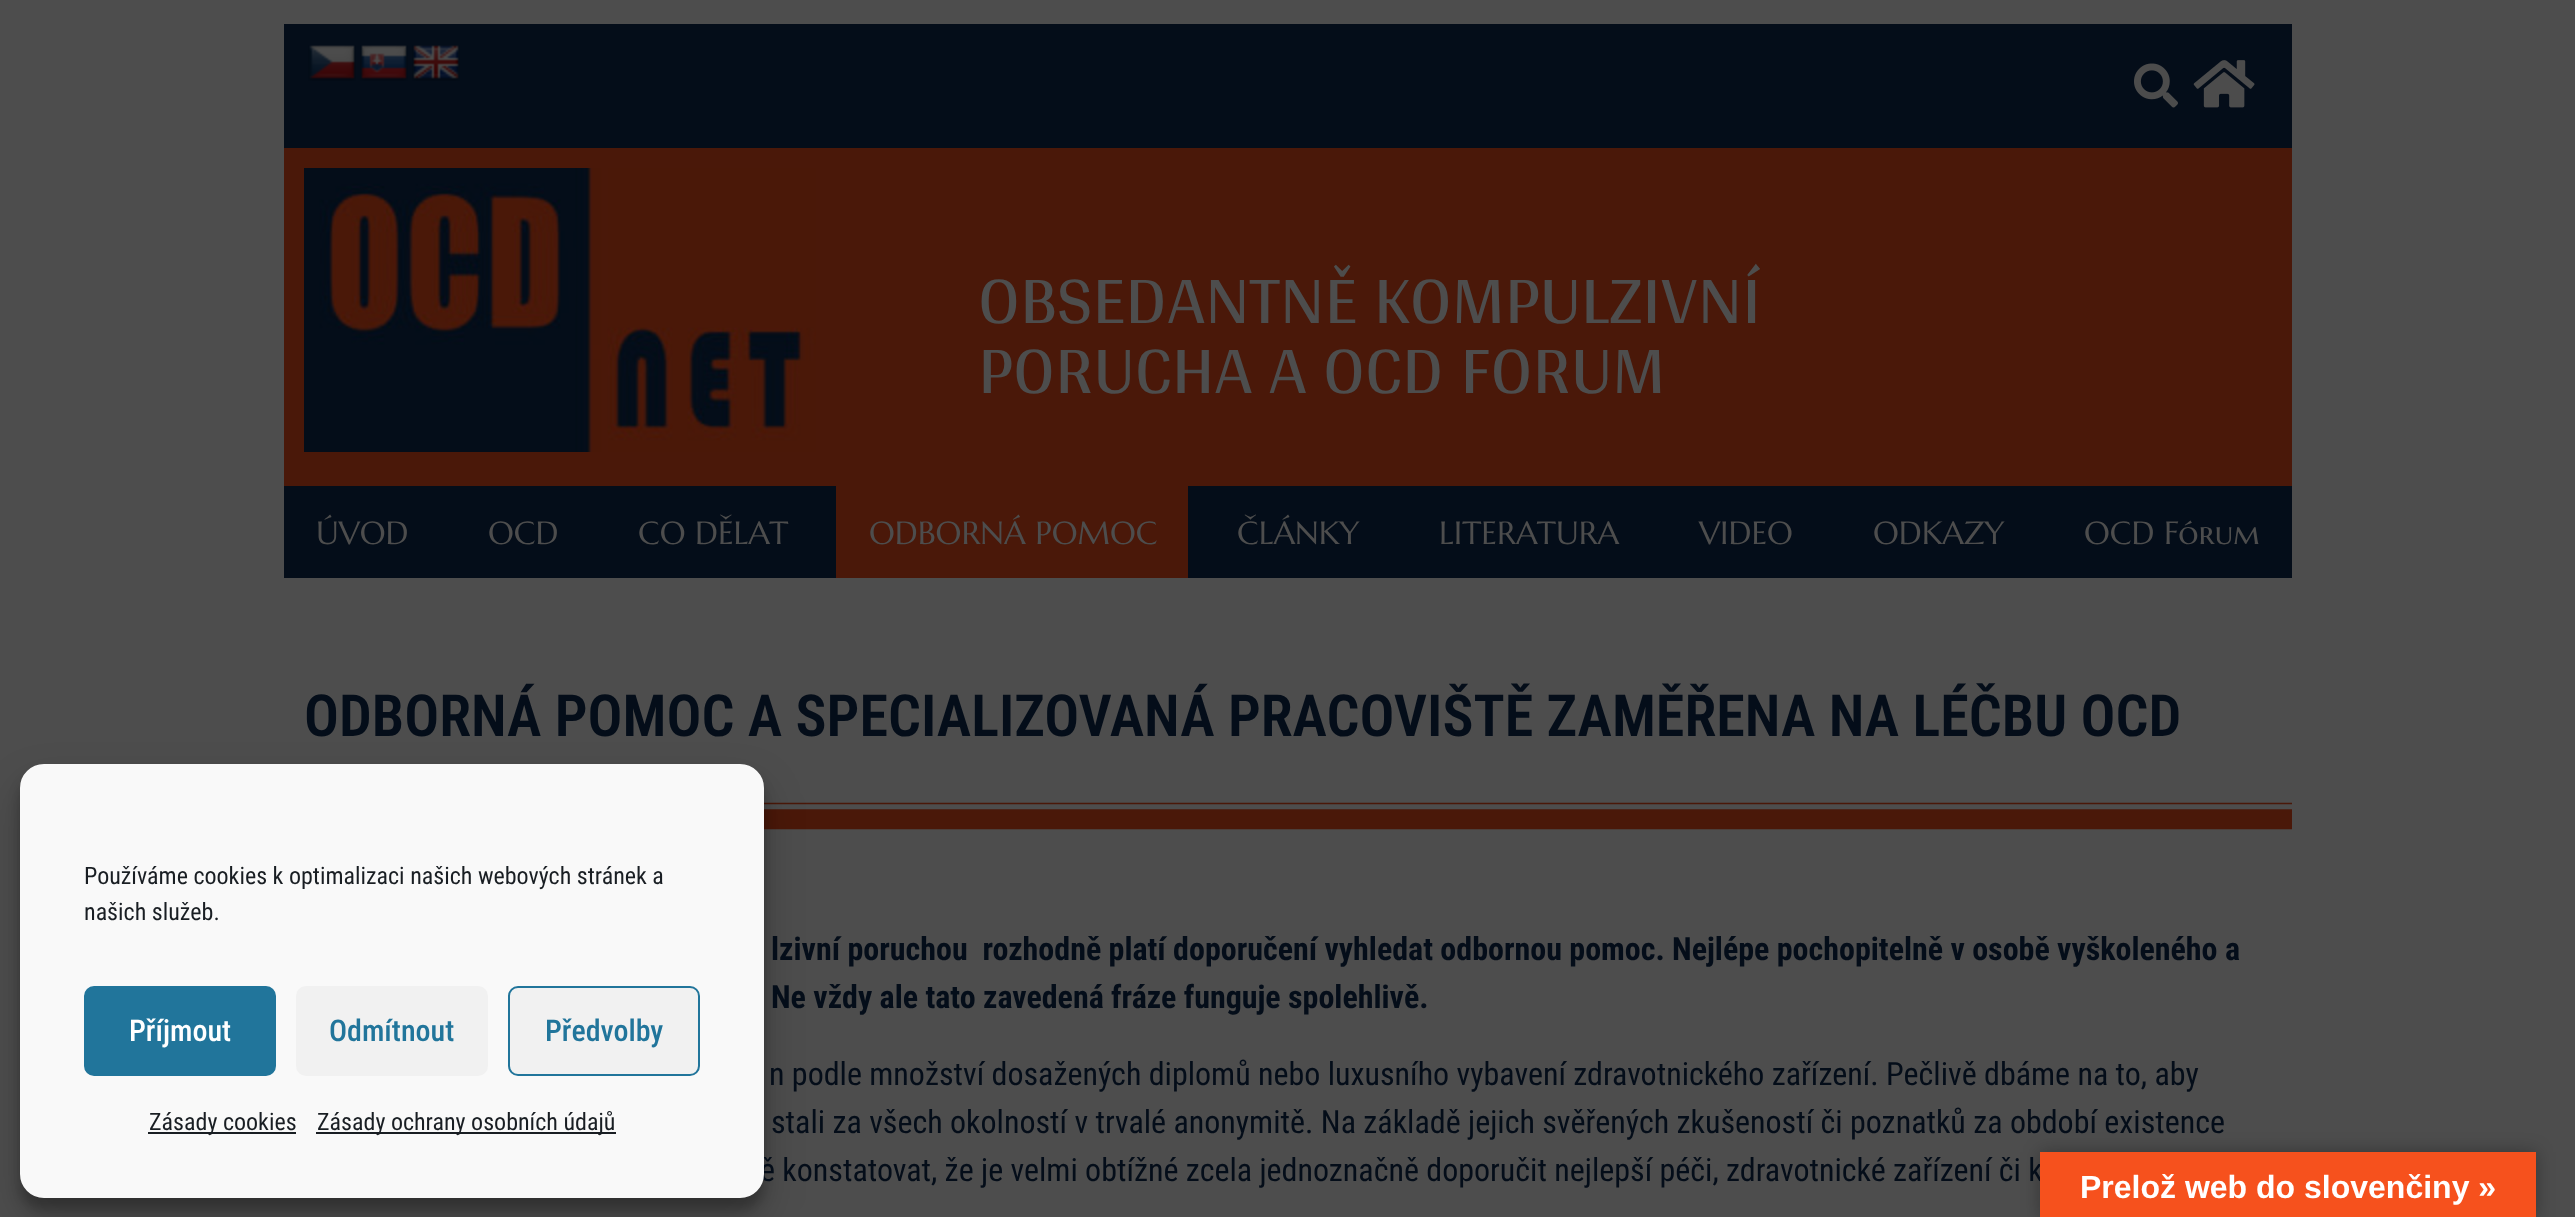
<svg xmlns="http://www.w3.org/2000/svg" width="2575" height="1217" viewBox="0 0 2575 1217">
  <rect width="100%" height="100%" fill="#4d4d4d"/>
  <path d="M284 24h2008v124H284z" fill="#040d19"/>
  <image x="308" y="45" width="48" height="36" href="img/1.png"/>
  <image x="360" y="45" width="48" height="36" href="img/2.png"/>
  <image x="412" y="45" width="48" height="36" href="img/3.png"/>
  <image x="2134" y="63" width="44" height="45" href="img/4.png"/>
  <image x="2193" y="60" width="62" height="48" href="img/5.png"/>
  <path d="M284 148h2008v338H284z" fill="#4a1809"/>
  <image x="304" y="168" width="512" height="284" href="img/6.png"/>
  <path d="M284 486h2008v92H284z" fill="#040d19"/>
  <path d="M836 486h352v92H836z" fill="#4a1809"/>
  <image x="764" y="802" width="1528" height="28" href="img/7.png"/>
  <rect x="20" y="776" width="744" height="434" rx="24" fill="#0000003b" filter="blur(6px)"/>
  <rect x="20" y="784" width="744" height="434" rx="24" fill="#00000030" filter="blur(20px)"/>
  <path d="M2040 1152h496v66H2040z" fill="#0000004d" filter="blur(9px)"/>
  <g font-family="Arya" font-size="70" fill="#4d4d4d">
    <text x="978" y="323">OBSEDANTNĚ KOMPULZIVNÍ</text>
    <text x="978" y="393">PORUCHA A OCD FORUM</text>
  </g>
  <g font-family="Marcellus SC" font-size="32" fill="#4d4d4d">
    <text x="316" y="544">ÚVOD</text>
    <text x="488" y="544">OCD</text>
    <text x="638" y="544">CO DĚLAT</text>
    <text x="869" y="544">ODBORNÁ POMOC</text>
    <text x="1237" y="544">ČLÁNKY</text>
    <text x="1439" y="544">LITERATURA</text>
    <text x="1699" y="544">VIDEO</text>
    <text x="1873" y="544">ODKAZY</text>
    <text x="2084" y="544">OCD Fórum</text>
  </g>
  <text x="304" y="736" font-family="Roboto Condensed" font-size="58" font-weight="600" fill="#040d19">ODBORNÁ POMOC A SPECIALIZOVANÁ PRACOVIŠTĚ ZAMĚŘENA NA LÉČBU OCD</text>
  <g font-family="Roboto Condensed" font-size="32" font-weight="bold" fill="#040d19">
    <text x="771" y="960" xml:space="preserve">lzivní poruchou  rozhodně platí doporučení vyhledat odbornou pomoc. Nejlépe pochopitelně v osobě vyškoleného a</text>
    <text x="771" y="1008">Ne vždy ale tato zavedená fráze funguje spolehlivě.</text>
  </g>
  <g font-family="Roboto Condensed" font-size="32" fill="#040d19">
    <text x="769" y="1085">n podle množství dosažených diplomů nebo luxusního vybavení zdravotnického zařízení. Pečlivě dbáme na to, aby</text>
    <text x="771" y="1133">stali za všech okolností v trvalé anonymitě. Na základě jejich svěřených zkušeností či poznatků za období existence</text>
    <text x="760" y="1181">ě konstatovat, že je velmi obtížné zcela jednoznačně doporučit nejlepší péči, zdravotnické zařízení či k</text>
  </g>
  <rect x="32" y="776" width="720" height="410" rx="12" fill="#f9f9f9" stroke="#f9f9f9" stroke-width="24"/>
  <g font-family="Roboto Condensed" font-size="24" fill="#191e23">
    <text x="84" y="884">Používáme cookies k optimalizaci našich webových stránek a</text>
    <text x="84" y="920">našich služeb.</text>
  </g>
  <rect x="85" y="987" width="190" height="88" rx="9" fill="#21759b" stroke="#21759b" stroke-width="2"/>
  <text x="129" y="1041" font-family="Roboto Condensed" font-size="30" font-weight="500" fill="#fff">Příjmout</text>
  <rect x="296" y="986" width="192" height="90" rx="10" fill="#f1f1f1"/>
  <text x="329" y="1041" font-family="Roboto Condensed" font-size="30" font-weight="500" fill="#21759b">Odmítnout</text>
  <rect x="509" y="987" width="190" height="88" rx="9" fill="#f1f1f1" stroke="#21759b" stroke-width="2"/>
  <text x="545" y="1041" font-family="Roboto Condensed" font-size="30" font-weight="500" fill="#21759b">Předvolby</text>
  <path d="M148 1132h148v2H148z" fill="#191e23"/>
  <text x="149" y="1130" font-family="Roboto Condensed" font-size="24" fill="#191e23">Zásady cookies</text>
  <path d="M316 1132h300v2H316z" fill="#191e23"/>
  <text x="317" y="1130" font-family="Roboto Condensed" font-size="24" fill="#191e23">Zásady ochrany osobních údajů</text>
  <path d="M2040 1152h496v65H2040z" fill="#f6511d"/>
  <text x="2080" y="1198" font-family="Liberation Sans" font-size="32" font-weight="bold" fill="#fff">Prelož web do slovenčiny »</text>
</svg>
